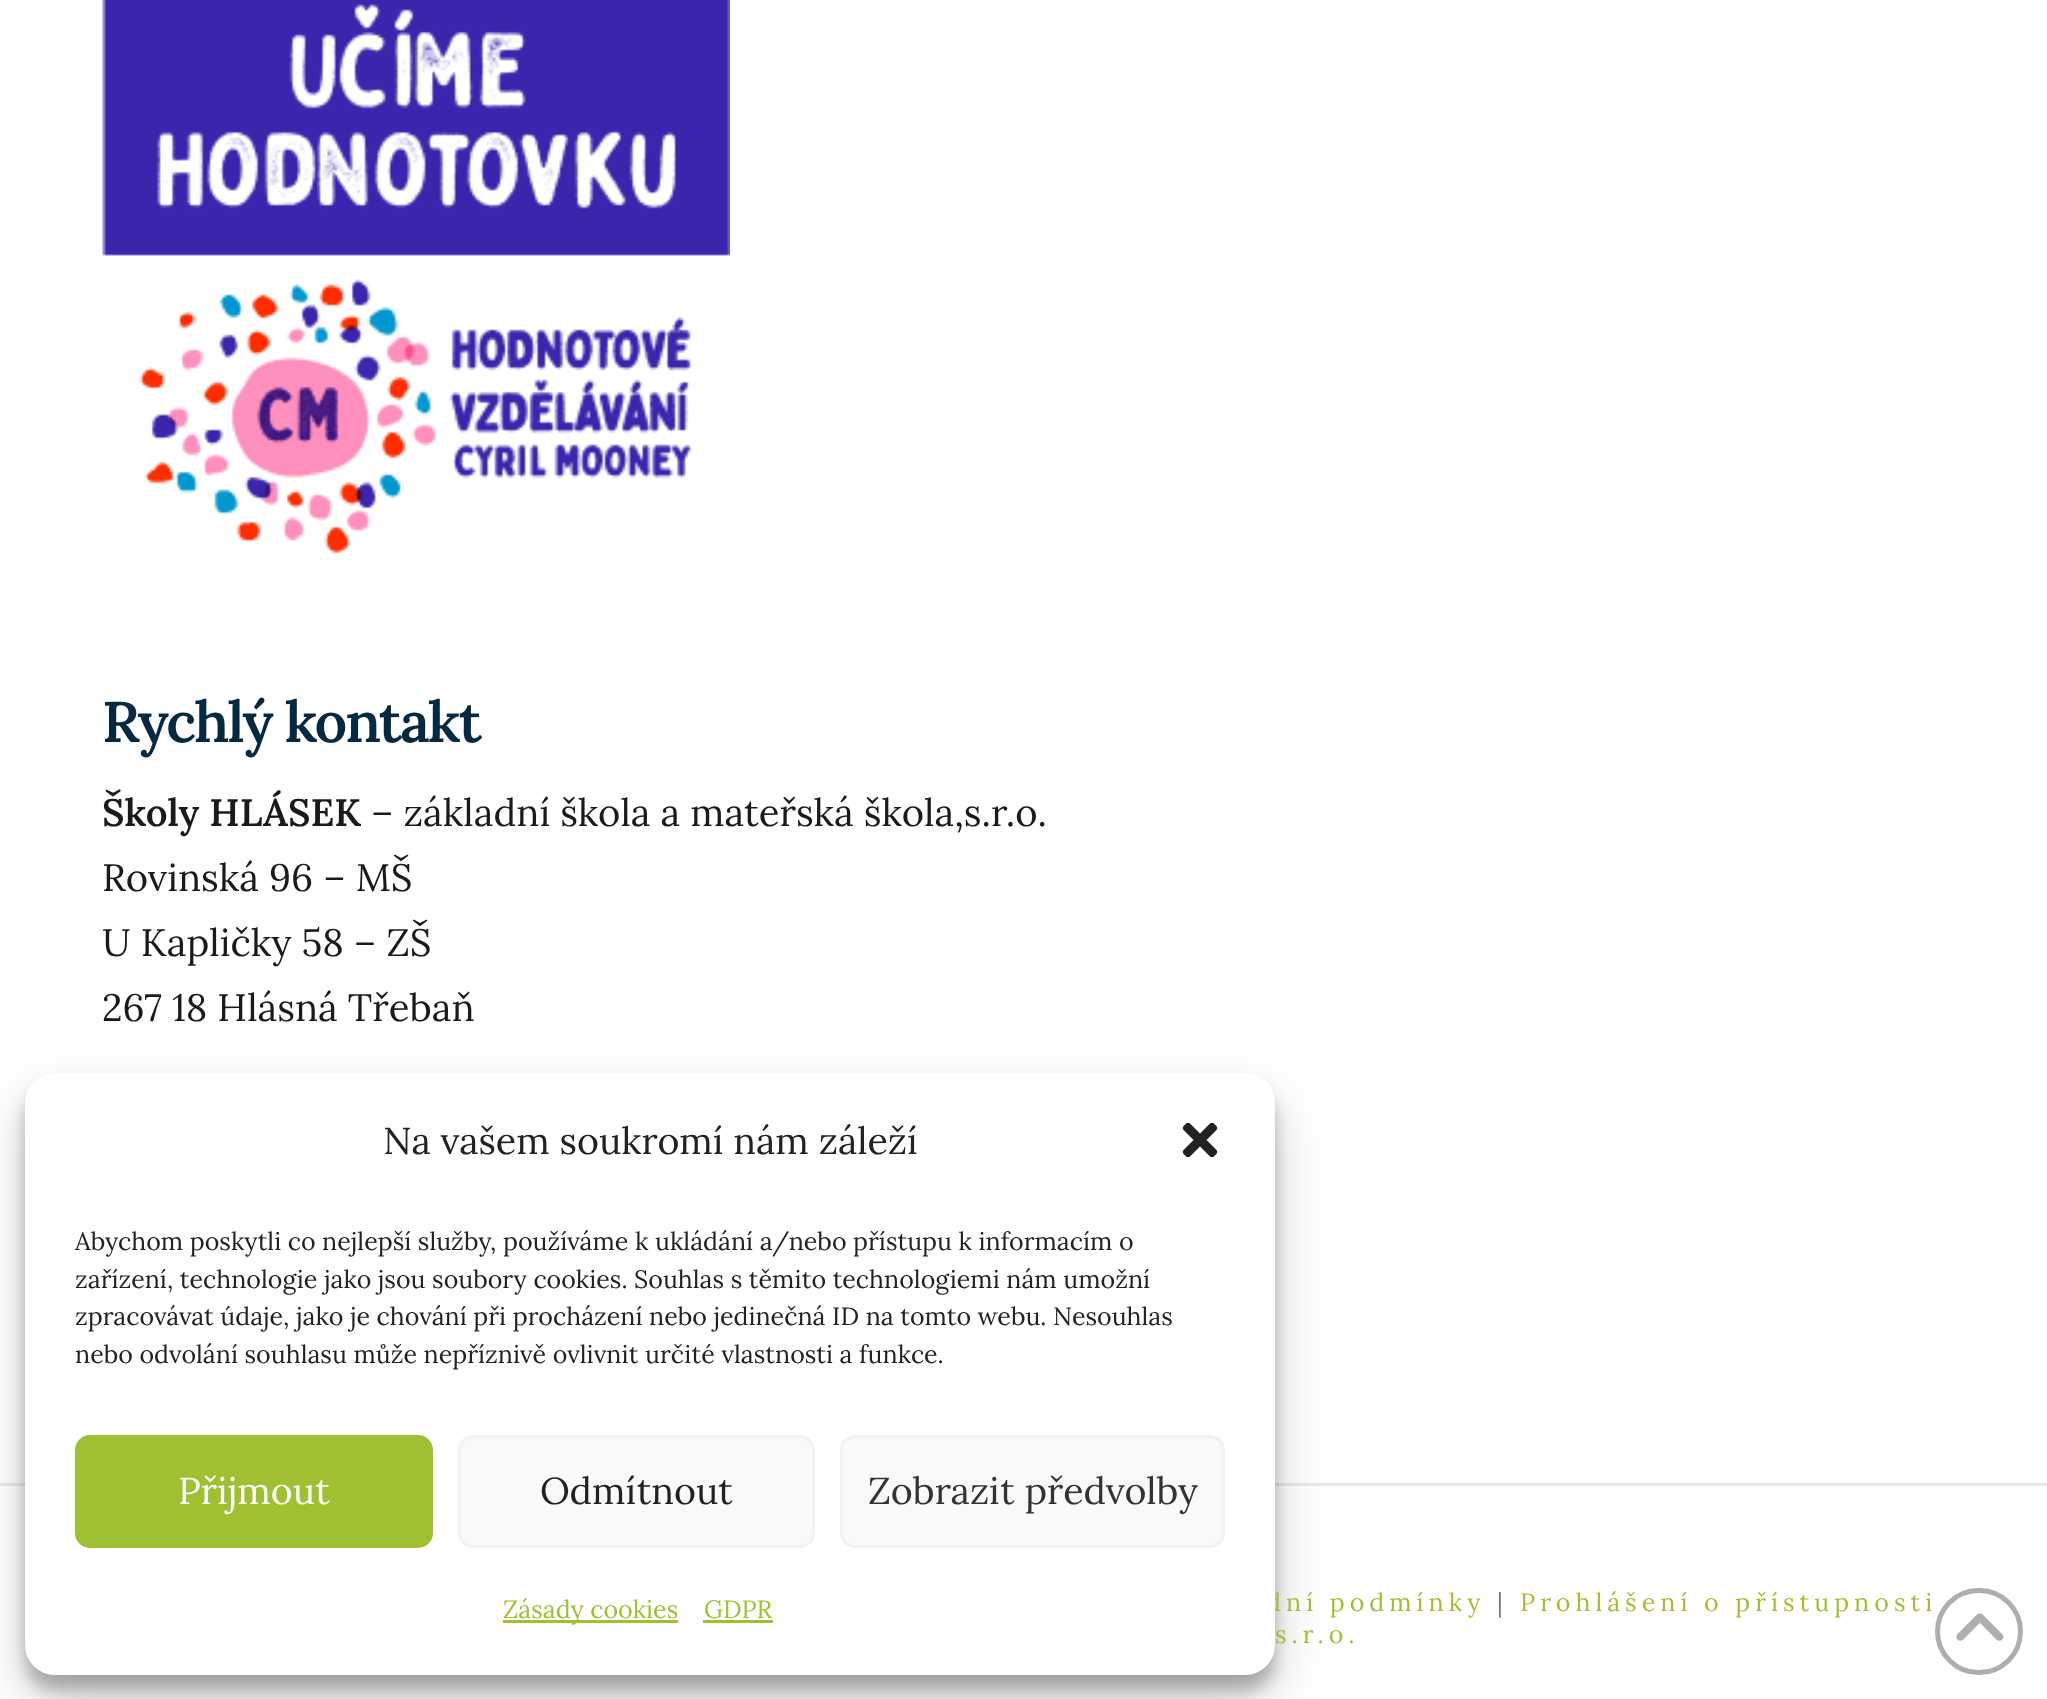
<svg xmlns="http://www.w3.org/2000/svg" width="2047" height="1699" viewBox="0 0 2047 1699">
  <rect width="100%" height="100%" fill="#fff"/>
  <image x="102" y="0" width="628" height="554" href="img/1.png"/>
  <path d="M0 1483h2047v3H0z" fill="#e9e9e9"/>
  <rect x="1937.5" y="1590.5" width="83" height="82" rx="41" fill="none" stroke="#aeaeae" stroke-width="5"/>
  <image x="1956" y="1613" width="48" height="28" href="img/2.png"/>
  <rect x="25" y="1088" width="1250" height="602" rx="30" fill="#0000003b" filter="blur(7.5px)"/>
  <rect x="25" y="1098" width="1250" height="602" rx="30" fill="#00000030" filter="blur(25px)"/>
  <text x="102" y="742" font-family="Lora" font-size="57.25" font-weight="600" letter-spacing="-2" fill="#042940">Rychlý kontakt</text>
  <text x="102" y="826" font-family="Lora" font-size="38.2" font-weight="600" fill="#1a1a1a">Školy HLÁSEK</text>
  <g font-family="Lora" font-size="38.2" fill="#1a1a1a">
    <text x="371" y="826">– základní škola a mateřská škola,s.r.o.</text>
    <text x="102" y="891">Rovinská 96 – MŠ</text>
    <text x="102" y="956">U Kapličky 58 – ZŠ</text>
    <text x="102" y="1021">267 18 Hlásná Třebaň</text>
  </g>
  <text x="1266" y="1611" font-family="Lora" font-size="25" letter-spacing="5" fill="#9fc131">dní podmínky</text>
  <text x="1497" y="1611" font-family="Lora" font-size="25" letter-spacing="5" fill="#7a7a7a">|</text>
  <g font-family="Lora" font-size="25" letter-spacing="5" fill="#9fc131">
    <text x="1520" y="1611">Prohlášení o přístupnosti</text>
    <text x="1275" y="1643">s.r.o.</text>
  </g>
  <rect x="25" y="1073" width="1250" height="602" rx="30" fill="#fff"/>
  <text x="383" y="1154" font-family="Lora" font-size="37.5" fill="#222">Na vašem soukromí nám záleží</text>
  <image x="1182" y="1122" width="36" height="36" href="img/3.png"/>
  <g font-family="Lora" font-size="25" fill="#222">
    <text x="75" y="1250">Abychom poskytli co nejlepší služby, používáme k ukládání a/nebo přístupu k informacím o</text>
    <text x="75" y="1288">zařízení, technologie jako jsou soubory cookies. Souhlas s těmito technologiemi nám umožní</text>
    <text x="75" y="1325">zpracovávat údaje, jako je chování při procházení nebo jedinečná ID na tomto webu. Nesouhlas</text>
    <text x="75" y="1363">nebo odvolání souhlasu může nepříznivě ovlivnit určité vlastnosti a funkce.</text>
  </g>
  <rect x="76.5" y="1436.5" width="355" height="110" rx="13.5" fill="#9fc131" stroke="#9fc131" stroke-width="3"/>
  <text x="178" y="1504" font-family="Lora" font-size="37.5" fill="#fff">Přijmout</text>
  <rect x="459.5" y="1436.5" width="354" height="110" rx="13.5" fill="#f9f9f9" stroke="#f2f2f2" stroke-width="3"/>
  <text x="540" y="1504" font-family="Lora" font-size="37.5" fill="#222">Odmítnout</text>
  <rect x="841.5" y="1436.5" width="382" height="110" rx="13.5" fill="#f9f9f9" stroke="#f2f2f2" stroke-width="3"/>
  <text x="868" y="1504" font-family="Lora" font-size="37.5" fill="#333">Zobrazit předvolby</text>
  <path d="M503 1620h175v3H503z" fill="#9fc131"/>
  <g font-family="Lora" font-size="25" fill="#9fc131">
    <text x="503" y="1618">Zásady cookies</text>
    <text x="704" y="1618">GDPR</text>
  </g>
  <path d="M703 1620h70v3H703z" fill="#9fc131"/>
</svg>
